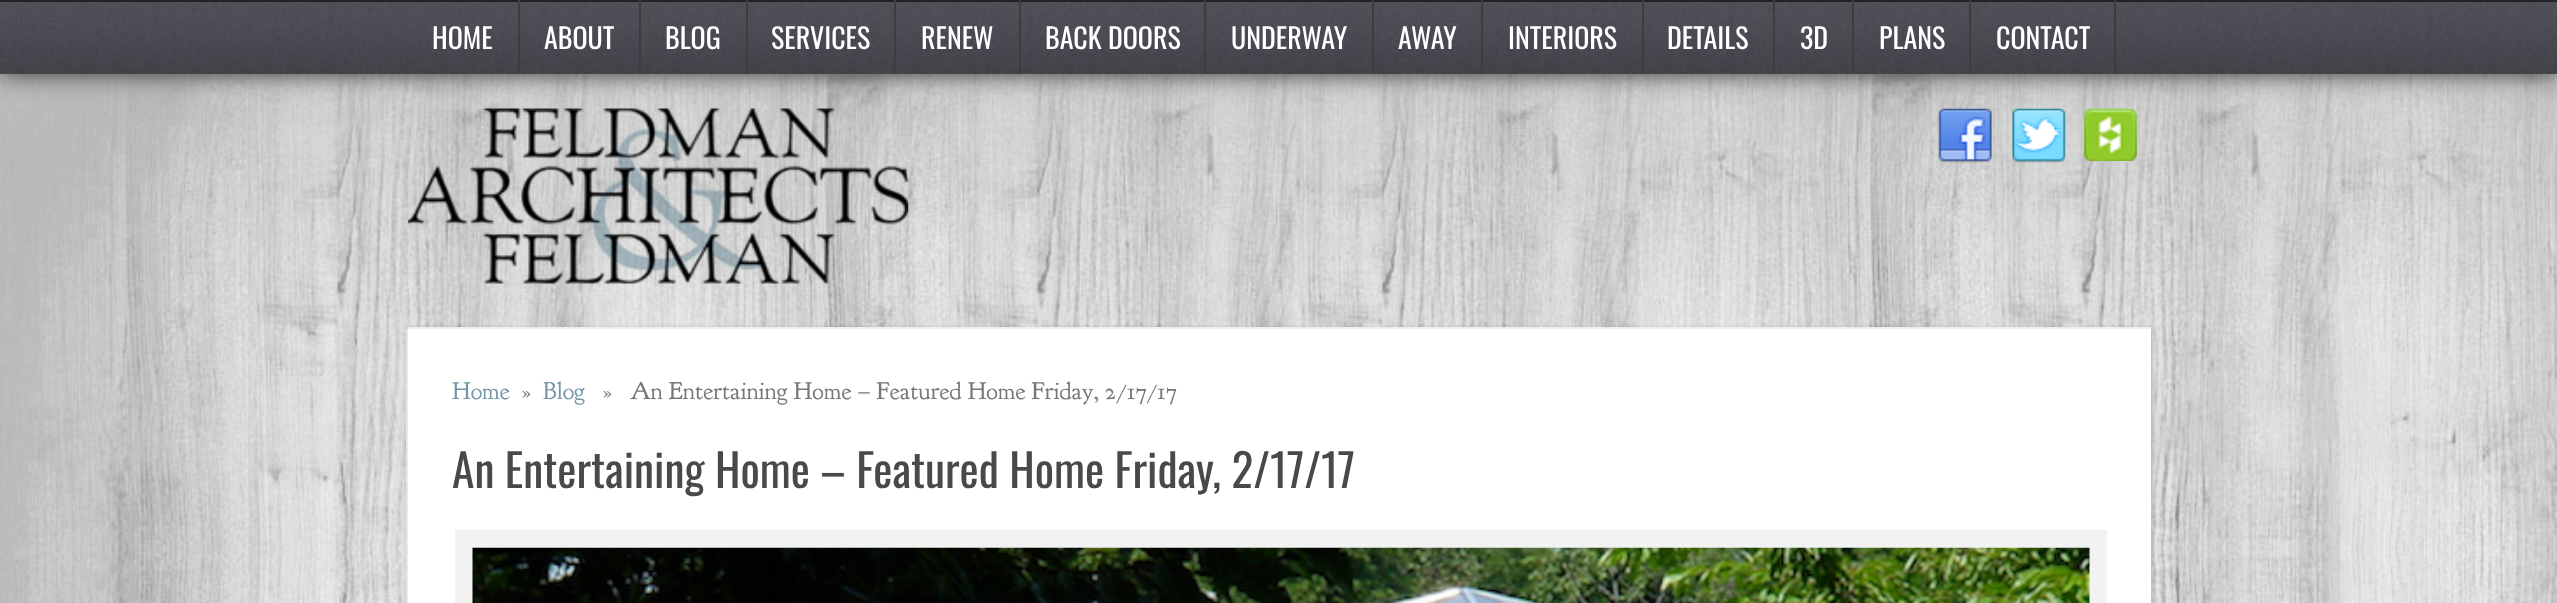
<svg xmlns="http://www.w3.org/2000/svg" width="2557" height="603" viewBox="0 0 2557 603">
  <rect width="100%" height="100%" fill="#fff"/>
  <image x="0" y="74" width="2557" height="529" href="img/1.png"/>
  <path d="M0 -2h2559v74H0z" fill="#222" filter="blur(13px)"/>
  <path d="M0 73h2557v1H0z" fill="#494951"/>
  <image x="0" y="2" width="2557" height="72" href="img/2.png"/>
  <path d="M0 0h2557v2H0z" fill="#222"/>
  <path d="M518 0h2v74H518z" fill="#3d3d3d"/>
  <path d="M639 0h2v74H639z" fill="#3d3d3d"/>
  <path d="M746 0h2v74H746z" fill="#3d3d3d"/>
  <path d="M894 0h2v74H894z" fill="#3d3d3d"/>
  <path d="M1019 0h2v74H1019z" fill="#3d3d3d"/>
  <path d="M1204 0h2v74H1204z" fill="#3d3d3d"/>
  <path d="M1372 0h2v74H1372z" fill="#3d3d3d"/>
  <path d="M1481 0h2v74H1481z" fill="#3d3d3d"/>
  <path d="M1642 0h2v74H1642z" fill="#3d3d3d"/>
  <path d="M1773 0h2v74H1773z" fill="#3d3d3d"/>
  <path d="M1852 0h2v74H1852z" fill="#3d3d3d"/>
  <path d="M1969 0h2v74H1969z" fill="#3d3d3d"/>
  <path d="M2114 0h2v74H2114z" fill="#3d3d3d"/>
  <image x="407" y="108" width="502" height="176" href="img/3.png"/>
  <image x="1938" y="108" width="54" height="55" href="img/4.png"/>
  <image x="2012" y="108" width="54" height="55" href="img/5.png"/>
  <image x="2084" y="108" width="53" height="53" href="img/6.png"/>
  <path d="M408 329h1743v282H408z" fill="#0000004d" filter="blur(2.5px)"/>
  <path d="M408 327h1743v2H408z" fill="#eee"/>
  <path d="M408 329h1743v274H408z" fill="#fff"/>
  <path d="M406 329h2v274H406z" fill="#e8e8e8"/>
  <path d="M464 539h1634v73H464z" fill="none" stroke="#f2f2f2" stroke-width="18"/>
  <image x="472" y="547" width="1618" height="56" href="img/7.png"/>
  <g font-family="Oswald" font-size="28" fill="#fff">
    <text x="432" y="49">HOME</text>
    <text x="544" y="49">ABOUT</text>
    <text x="665" y="49">BLOG</text>
    <text x="771" y="49">SERVICES</text>
    <text x="921" y="49">RENEW</text>
    <text x="1045" y="49">BACK DOORS</text>
    <text x="1231" y="49">UNDERWAY</text>
    <text x="1398" y="49">AWAY</text>
    <text x="1508" y="49">INTERIORS</text>
    <text x="1667" y="49">DETAILS</text>
    <text x="1800" y="49">3D</text>
    <text x="1879" y="49">PLANS</text>
    <text x="1996" y="49">CONTACT</text>
  </g>
  <text x="452" y="399" font-family="'Goudy Bookletter 1911'" font-size="24.5" fill="#7596a6">Home</text>
  <text x="522" y="399" font-family="'Goudy Bookletter 1911'" font-size="24.5" fill="#777">»</text>
  <text x="543" y="399" font-family="'Goudy Bookletter 1911'" font-size="24.5" fill="#7596a6">Blog</text>
  <text x="603" y="399" font-family="'Goudy Bookletter 1911'" font-size="24.5" fill="#777" xml:space="preserve">»   An Entertaining Home – Featured Home Friday, 2/17/17</text>
  <text x="452" y="488" font-family="Oswald" font-size="45.5" fill="#494949">An Entertaining Home – Featured Home Friday, 2/17/17</text>
</svg>
